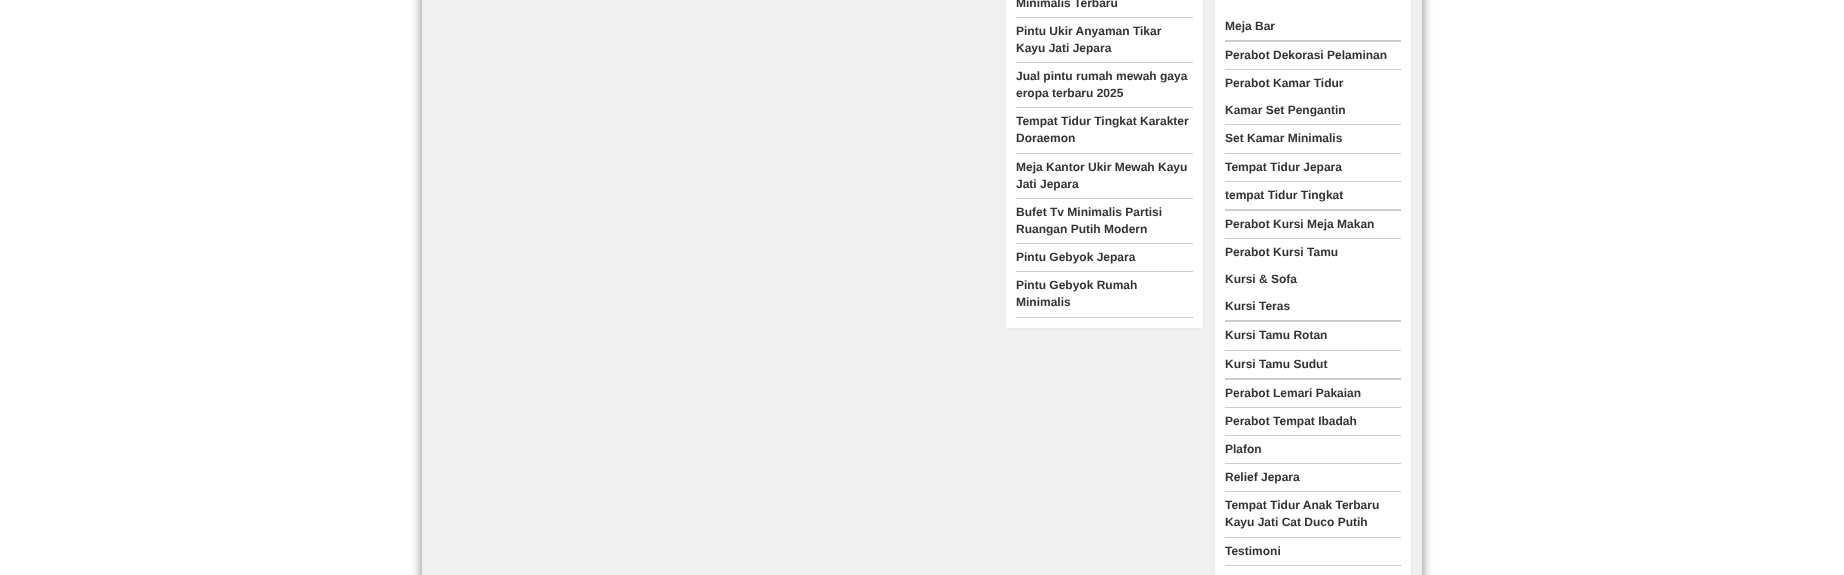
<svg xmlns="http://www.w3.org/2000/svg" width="1844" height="575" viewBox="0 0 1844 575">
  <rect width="100%" height="100%" fill="#fff"/>
  <path d="M422 -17h1000v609H422z" fill="#323232a1" filter="blur(5.5px)"/>
  <path d="M422 0h1000v575H422z" fill="#f0f0f0"/>
  <path d="M1005.5 -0.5h198v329H1005.5z" fill="#fff" stroke="#ebebeb"/>
  <path d="M1016 17h177v1H1016z" fill="#ccc"/>
  <path d="M1016 62h177v1H1016z" fill="#ccc"/>
  <path d="M1016 107h177v1H1016z" fill="#ccc"/>
  <path d="M1016 153h177v1H1016z" fill="#ccc"/>
  <path d="M1016 198h177v1H1016z" fill="#ccc"/>
  <path d="M1016 243h177v1H1016z" fill="#ccc"/>
  <path d="M1016 271h177v1H1016z" fill="#ccc"/>
  <path d="M1016 317h177v1H1016z" fill="#ccc"/>
  <path d="M1214.5 -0.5h197v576H1214.5z" fill="#fff" stroke="#ebebeb"/>
  <path d="M1225 40h176v2H1225z" fill="#ccc"/>
  <path d="M1225 69h176v1H1225z" fill="#ccc"/>
  <path d="M1225 209h176v2H1225z" fill="#ccc"/>
  <path d="M1225 124h176v1H1225z" fill="#ccc"/>
  <path d="M1225 153h176v1H1225z" fill="#ccc"/>
  <path d="M1225 181h176v1H1225z" fill="#ccc"/>
  <path d="M1225 238h176v1H1225z" fill="#ccc"/>
  <path d="M1225 378h176v2H1225z" fill="#ccc"/>
  <path d="M1225 320h176v2H1225z" fill="#ccc"/>
  <path d="M1225 350h176v1H1225z" fill="#ccc"/>
  <path d="M1225 407h176v1H1225z" fill="#ccc"/>
  <path d="M1225 435h176v1H1225z" fill="#ccc"/>
  <path d="M1225 463h176v1H1225z" fill="#ccc"/>
  <path d="M1225 491h176v1H1225z" fill="#ccc"/>
  <path d="M1225 537h176v1H1225z" fill="#ccc"/>
  <path d="M1225 565h176v1H1225z" fill="#ccc"/>
  <g font-family="Liberation Sans" font-size="12" font-weight="bold" fill="#333">
    <text x="1016" y="7">Minimalis Terbaru</text>
    <text x="1016" y="35">Pintu Ukir Anyaman Tikar</text>
    <text x="1016" y="52">Kayu Jati Jepara</text>
    <text x="1016" y="80">Jual pintu rumah mewah gaya</text>
    <text x="1016" y="97">eropa terbaru 2025</text>
    <text x="1016" y="125">Tempat Tidur Tingkat Karakter</text>
    <text x="1016" y="142">Doraemon</text>
    <text x="1016" y="171">Meja Kantor Ukir Mewah Kayu</text>
    <text x="1016" y="188">Jati Jepara</text>
    <text x="1016" y="216">Bufet Tv Minimalis Partisi</text>
    <text x="1016" y="233">Ruangan Putih Modern</text>
    <text x="1016" y="261">Pintu Gebyok Jepara</text>
    <text x="1016" y="289">Pintu Gebyok Rumah</text>
    <text x="1016" y="306">Minimalis</text>
    <text x="1225" y="30">Meja Bar</text>
    <text x="1225" y="59">Perabot Dekorasi Pelaminan</text>
    <text x="1225" y="87">Perabot Kamar Tidur</text>
    <text x="1225" y="114">Kamar Set Pengantin</text>
    <text x="1225" y="142">Set Kamar Minimalis</text>
    <text x="1225" y="171">Tempat Tidur Jepara</text>
    <text x="1225" y="199">tempat Tidur Tingkat</text>
    <text x="1225" y="228">Perabot Kursi Meja Makan</text>
    <text x="1225" y="256">Perabot Kursi Tamu</text>
    <text x="1225" y="283">Kursi &amp; Sofa</text>
    <text x="1225" y="310">Kursi Teras</text>
    <text x="1225" y="339">Kursi Tamu Rotan</text>
    <text x="1225" y="368">Kursi Tamu Sudut</text>
    <text x="1225" y="397">Perabot Lemari Pakaian</text>
    <text x="1225" y="425">Perabot Tempat Ibadah</text>
    <text x="1225" y="453">Plafon</text>
    <text x="1225" y="481">Relief Jepara</text>
    <text x="1225" y="509">Tempat Tidur Anak Terbaru</text>
    <text x="1225" y="526">Kayu Jati Cat Duco Putih</text>
    <text x="1225" y="555">Testimoni</text>
  </g>
</svg>
